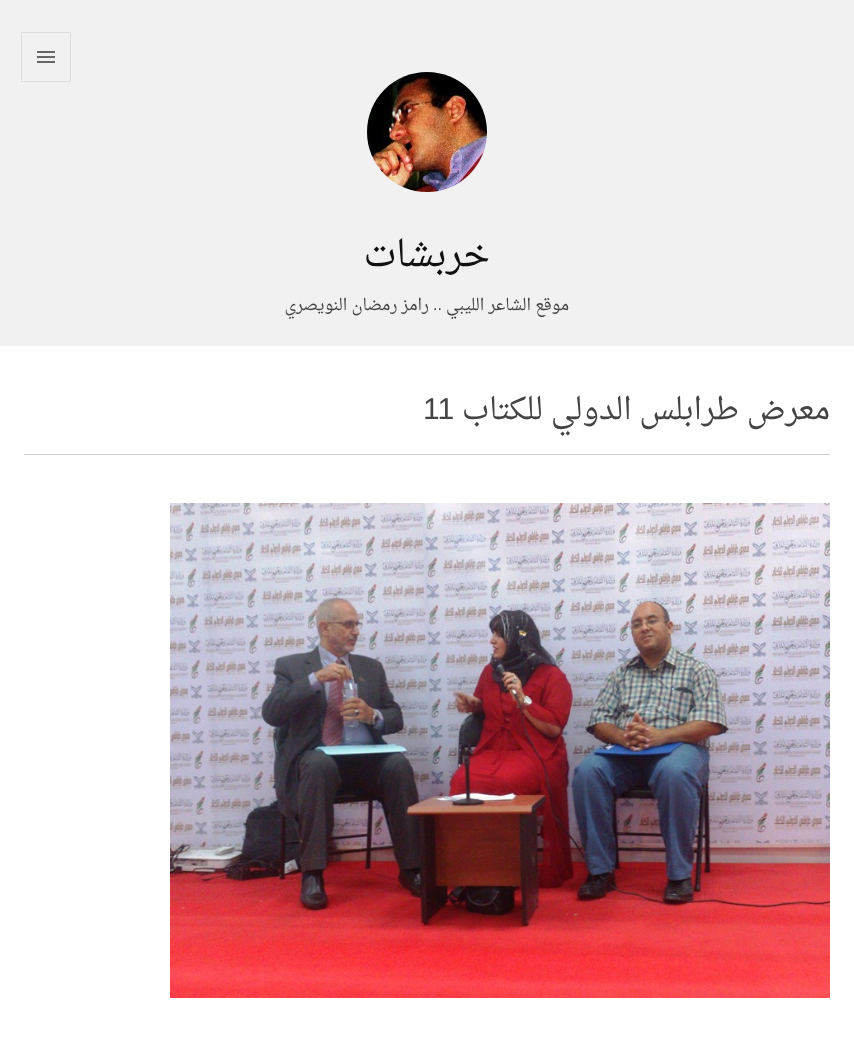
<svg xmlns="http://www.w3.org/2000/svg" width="854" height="1038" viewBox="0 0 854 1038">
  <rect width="100%" height="100%" fill="#fff"/>
  <path d="M0 0h854v346H0z" fill="#f1f1f1"/>
  <path d="M21.5 32.5h49v49H21.5z" fill="none" stroke="#ddd"/>
  <path d="M37 51h18v2H37z" fill="#666"/>
  <path d="M37 56h18v2H37z" fill="#666"/>
  <path d="M37 61h18v2H37z" fill="#666"/>
  <image x="367" y="72" width="120" height="120" href="img/1.png"/>
  <path d="M24 454h806v1H24z" fill="#ccc"/>
  <image x="170" y="503" width="660" height="495" href="img/2.png"/>
  <text x="490" y="266" font-family="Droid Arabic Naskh" font-size="36" direction="rtl" fill="#111">خربشات</text>
  <text x="569" y="310" font-family="Droid Arabic Naskh" font-size="16" direction="rtl" fill="#444">موقع الشاعر الليبي</text>
  <text x="442" y="310" font-family="Liberation Sans" font-size="16" direction="rtl" fill="#444">..</text>
  <text x="429" y="310" font-family="Droid Arabic Naskh" font-size="16" direction="rtl" fill="#444">رامز رمضان النويصري</text>
  <text x="830" y="419" font-family="Droid Arabic Naskh" font-size="30" direction="rtl" fill="#444">معرض طرابلس الدولي للكتاب</text>
  <text x="423" y="419" font-family="Liberation Sans" font-size="30" fill="#444">11</text>
</svg>
